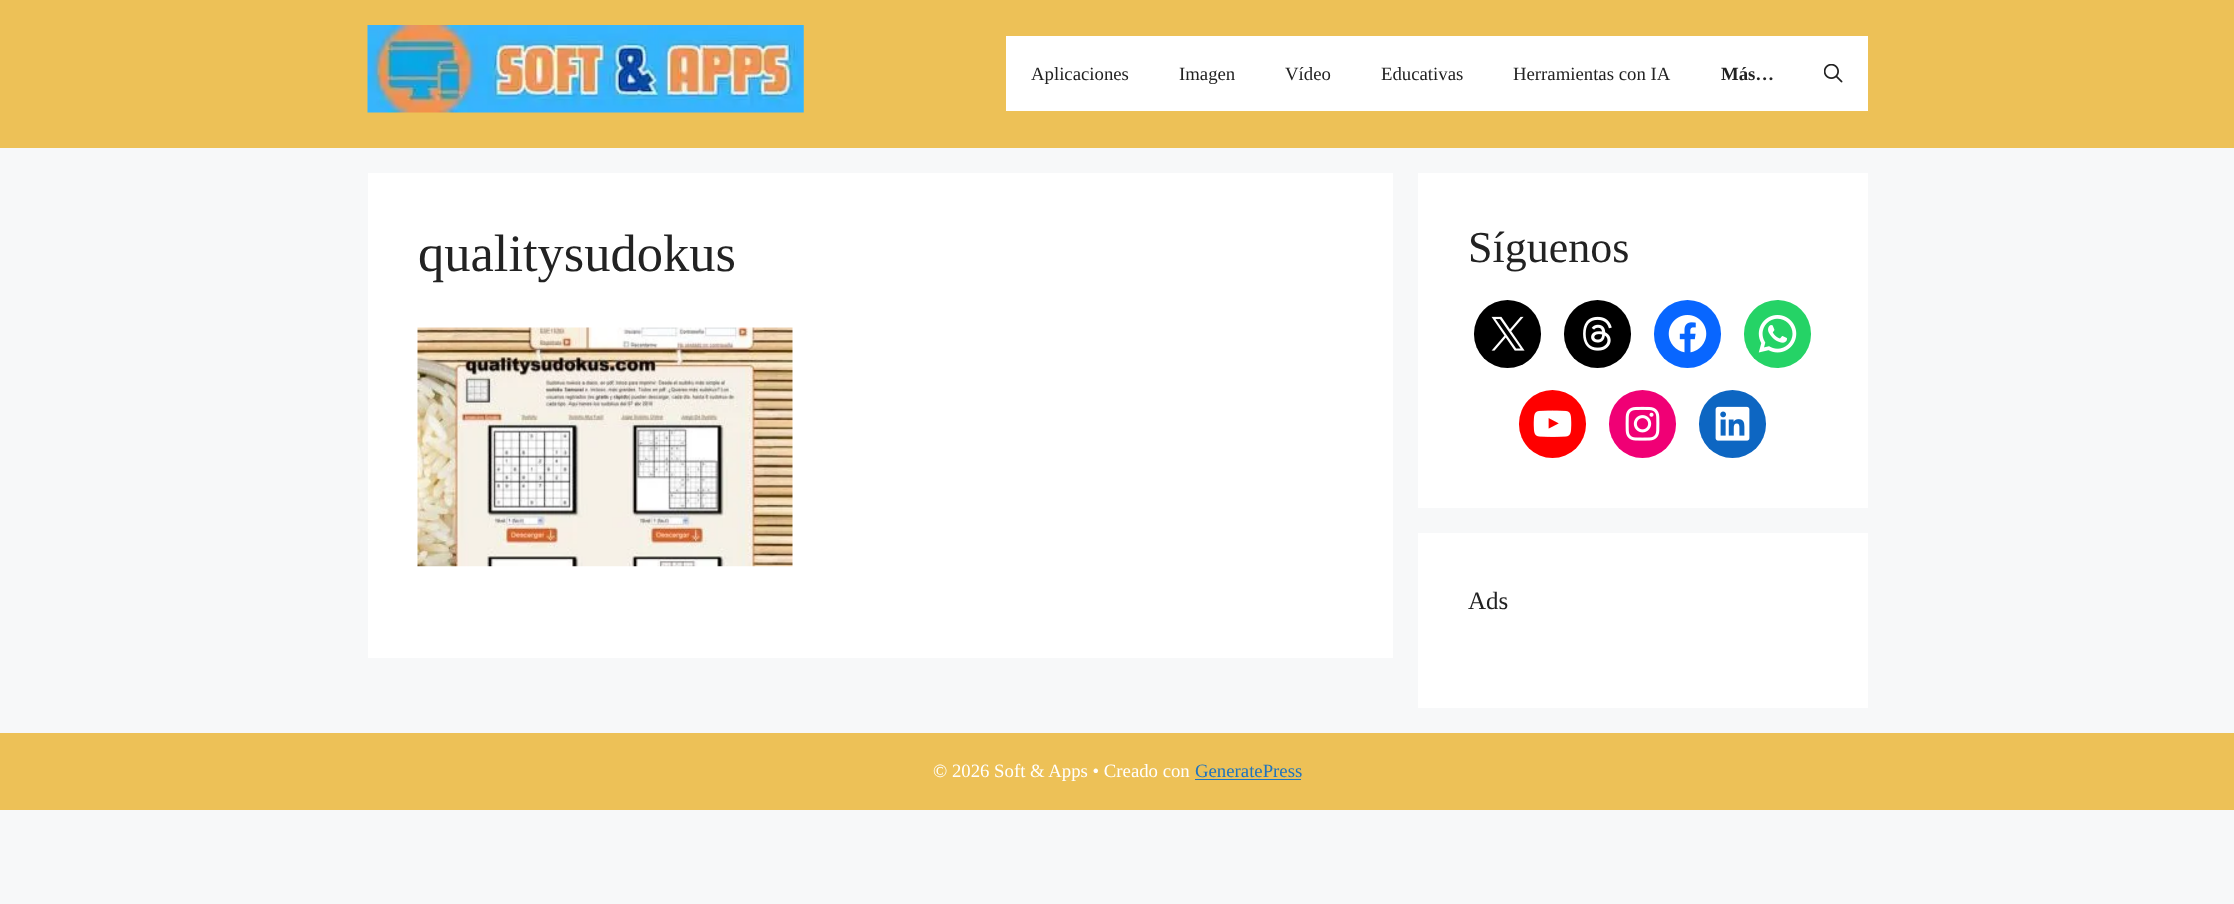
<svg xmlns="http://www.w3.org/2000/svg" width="2234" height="904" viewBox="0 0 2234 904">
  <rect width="100%" height="100%" fill="#f7f8f9"/>
  <path d="M0 0h2234v148H0z" fill="#edc157"/>
  <image x="367" y="25" width="437" height="88" href="img/1.png"/>
  <path d="M1006 36h862v75H1006z" fill="#fff"/>
  <image x="1824" y="64" width="19" height="19" href="img/2.png"/>
  <path d="M368 173h1025v485H368z" fill="#fff"/>
  <image x="417" y="327" width="376" height="240" href="img/3.png"/>
  <path d="M1418 173h450v335H1418z" fill="#fff"/>
  <rect x="1474" y="300" width="67" height="68" rx="33.5" fill="#000"/>
  <image x="1491" y="316" width="34" height="35" href="img/4.png"/>
  <rect x="1564" y="300" width="67" height="68" rx="33.5" fill="#000"/>
  <image x="1583" y="316" width="29" height="35" href="img/5.png"/>
  <rect x="1654" y="300" width="67" height="68" rx="33.5" fill="#0866ff"/>
  <image x="1668" y="315" width="39" height="38" href="img/6.png"/>
  <rect x="1744" y="300" width="67" height="68" rx="33.5" fill="#25d366"/>
  <image x="1758" y="315" width="39" height="38" href="img/7.png"/>
  <rect x="1519" y="390" width="67" height="68" rx="33.5" fill="#f00"/>
  <image x="1533" y="410" width="39" height="27" href="img/8.png"/>
  <rect x="1609" y="390" width="67" height="68" rx="33.5" fill="#f00075"/>
  <image x="1625" y="406" width="35" height="35" href="img/9.png"/>
  <rect x="1699" y="390" width="67" height="68" rx="33.5" fill="#0d66c2"/>
  <image x="1715" y="406" width="35" height="35" href="img/10.png"/>
  <path d="M1418 533h450v175H1418z" fill="#fff"/>
  <path d="M0 733h2234v77H0z" fill="#edc157"/>
  <path d="M1195 779h106v1H1195z" fill="#1e73be"/>
  <g font-family="Liberation Serif" font-size="18.75" fill="#222">
    <text x="1031" y="80">Aplicaciones</text>
    <text x="1179" y="80">Imagen</text>
    <text x="1285" y="80">Vídeo</text>
    <text x="1381" y="80">Educativas</text>
    <text x="1513" y="80">Herramientas con IA</text>
  </g>
  <text x="1721" y="80" font-family="Liberation Serif" font-size="18.75" font-weight="bold" fill="#222">Más…</text>
  <text x="418" y="271" font-family="Liberation Serif" font-size="52.5" fill="#222">qualitysudokus</text>
  <text x="1468" y="262" font-family="Liberation Serif" font-size="44" fill="#222">Síguenos</text>
  <text x="1468" y="609" font-family="Liberation Serif" font-size="25" fill="#222">Ads</text>
  <text x="933" y="777" font-family="Liberation Serif" font-size="18.75" fill="#fff">© 2026 Soft &amp; Apps • Creado con</text>
  <text x="1195" y="777" font-family="Liberation Serif" font-size="18.75" fill="#1e73be">GeneratePress</text>
</svg>
